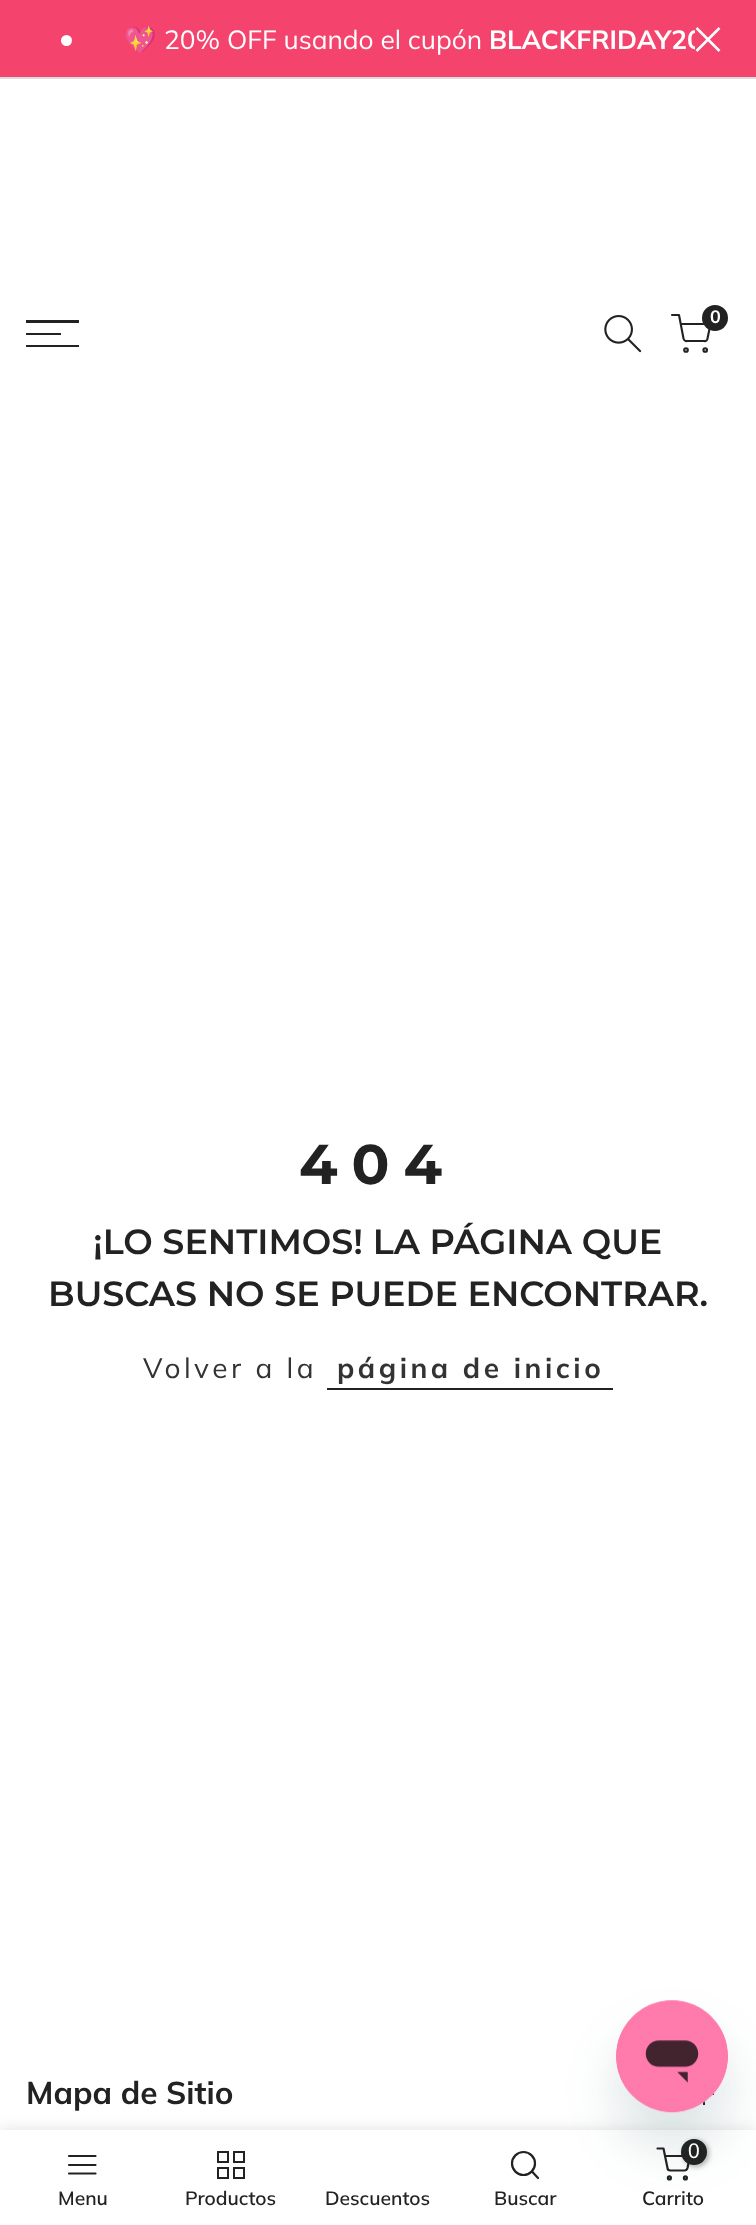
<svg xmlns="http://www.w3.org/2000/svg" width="756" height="2225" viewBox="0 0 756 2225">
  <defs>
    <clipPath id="clip1"><path d="M61 16h634v45H61z"/></clipPath>
  </defs>
  <rect width="100%" height="100%" fill="#fff"/>
  <path d="M0 0h756v77H0z" fill="#f4446e"/>
  <path d="M0 77h756v2H0z" fill="#ddd"/>
  <circle cx="66.5" cy="40.5" r="5.5" fill="#fff"/>
  <path d="M719.5 28L696.5 51M719.5 51L696.5 28" fill="none" stroke="#fff" stroke-width="2.5"/>
  <image x="604" y="315" width="38" height="38" href="img/1.png"/>
  <circle cx="686" cy="350" r="1.8" fill="none" stroke="#222" stroke-width="2.1"/>
  <circle cx="705.2" cy="350" r="1.8" fill="none" stroke="#222" stroke-width="2.1"/>
  <path d="M672 315H679L683.5 338.5C684 340 685.5 341.5 687 341H704C706 341.5 707.5 340 707.5 338.5L710.5 324H681" fill="none" stroke="#222" stroke-width="2.1" stroke-linecap="round" stroke-linejoin="round"/>
  <circle cx="715" cy="318" r="13" fill="#222"/>
  <path d="M26 320h53v3H26z" fill="#222"/>
  <path d="M26 333h35v2H26z" fill="#222"/>
  <path d="M26 345h53v2H26z" fill="#222"/>
  <path d="M327 1388h286v2H327z" fill="#222"/>
  <path d="M712 2093h2v2H712z" fill="#222"/>
  <path d="M703 2101h2v4H703z" fill="#222"/>
  <path d="M0 2130h756v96H0z" fill="#0000001f" filter="blur(8px)"/>
  <path d="M0 2130h756v95H0z" fill="#fff"/>
  <circle cx="523.5" cy="2163.5" r="11.5" fill="none" stroke="#222" stroke-width="2.2"/>
  <path d="M538 2178L532 2171.5" fill="none" stroke="#222" stroke-width="2.2" stroke-linecap="round" stroke-linejoin="round"/>
  <circle cx="669.4" cy="2177.9" r="1.5" fill="none" stroke="#222" stroke-width="2.2"/>
  <circle cx="685.4" cy="2177.9" r="1.5" fill="none" stroke="#222" stroke-width="2.2"/>
  <path d="M657.5 2148.5H663.5L667.5 2168C667.5 2169.5 669 2170.5 670.5 2170.5H684.5C686 2170.5 687 2169.5 687.5 2168L690 2156H665" fill="none" stroke="#222" stroke-width="2.2" stroke-linecap="round" stroke-linejoin="round"/>
  <rect x="683" y="2140" width="26" height="27" rx="13" fill="#0000004d" filter="blur(2.5px)"/>
  <circle cx="694" cy="2152" r="13" fill="#222"/>
  <rect x="616" y="2035" width="112" height="112" rx="56" fill="#17494d26" filter="blur(26px)"/>
  <image x="616" y="2000" width="112" height="113" href="img/2.png"/>
  <path d="M69 2165H95.5M69 2156H95.5M69 2173.5H95.5" fill="none" stroke="#222" stroke-width="2.2" stroke-linecap="round" stroke-linejoin="round"/>
  <path d="M218 2152h10v10H218z" fill="none" stroke="#222" stroke-width="2"/>
  <path d="M234 2152h10v10H234z" fill="none" stroke="#222" stroke-width="2"/>
  <path d="M234 2168h10v10H234z" fill="none" stroke="#222" stroke-width="2"/>
  <path d="M218 2168h10v10H218z" fill="none" stroke="#222" stroke-width="2"/>
  <text x="124" y="49" font-family="Noto Color Emoji" font-size="26.25" fill="#fff">💖</text>
  <text x="164" y="49" font-family="Muli" font-size="26.25" fill="#fff">20% OFF usando el cupón</text>
  <g clip-path="url(#clip1)">
    <text x="489" y="49" font-family="Muli" font-size="26.25" font-weight="bold" fill="#fff">BLACKFRIDAY20</text>
  </g>
  <text x="710" y="323" font-family="Muli" font-size="18" font-weight="bold" fill="#fff">0</text>
  <text x="299" y="1184" font-family="Montserrat" font-size="56" font-weight="bold" letter-spacing="14" fill="#222">404</text>
  <g font-family="Montserrat" font-size="35" font-weight="600" fill="#222">
    <text x="93" y="1254">¡LO SENTIMOS! LA PÁGINA QUE</text>
    <text x="48" y="1306">BUSCAS NO SE PUEDE ENCONTRAR.</text>
  </g>
  <text x="143" y="1378" font-family="Muli" font-size="28" letter-spacing="3.5" fill="#333">Volver a la</text>
  <text x="337" y="1378" font-family="Muli" font-size="28" font-weight="bold" letter-spacing="3.5" fill="#333">página de inicio</text>
  <text x="26" y="2104" font-family="Muli" font-size="31.5" font-weight="bold" fill="#222">Mapa de Sitio</text>
  <g font-family="Muli" font-size="19.25" font-weight="600" fill="#222">
    <text x="58" y="2205">Menu</text>
    <text x="185" y="2205">Productos</text>
    <text x="325" y="2205">Descuentos</text>
    <text x="494" y="2205">Buscar</text>
  </g>
  <text x="688" y="2158" font-family="Liberation Sans" font-size="21" fill="#fff">0</text>
  <text x="642" y="2205" font-family="Muli" font-size="19.25" font-weight="600" fill="#222">Carrito</text>
</svg>
